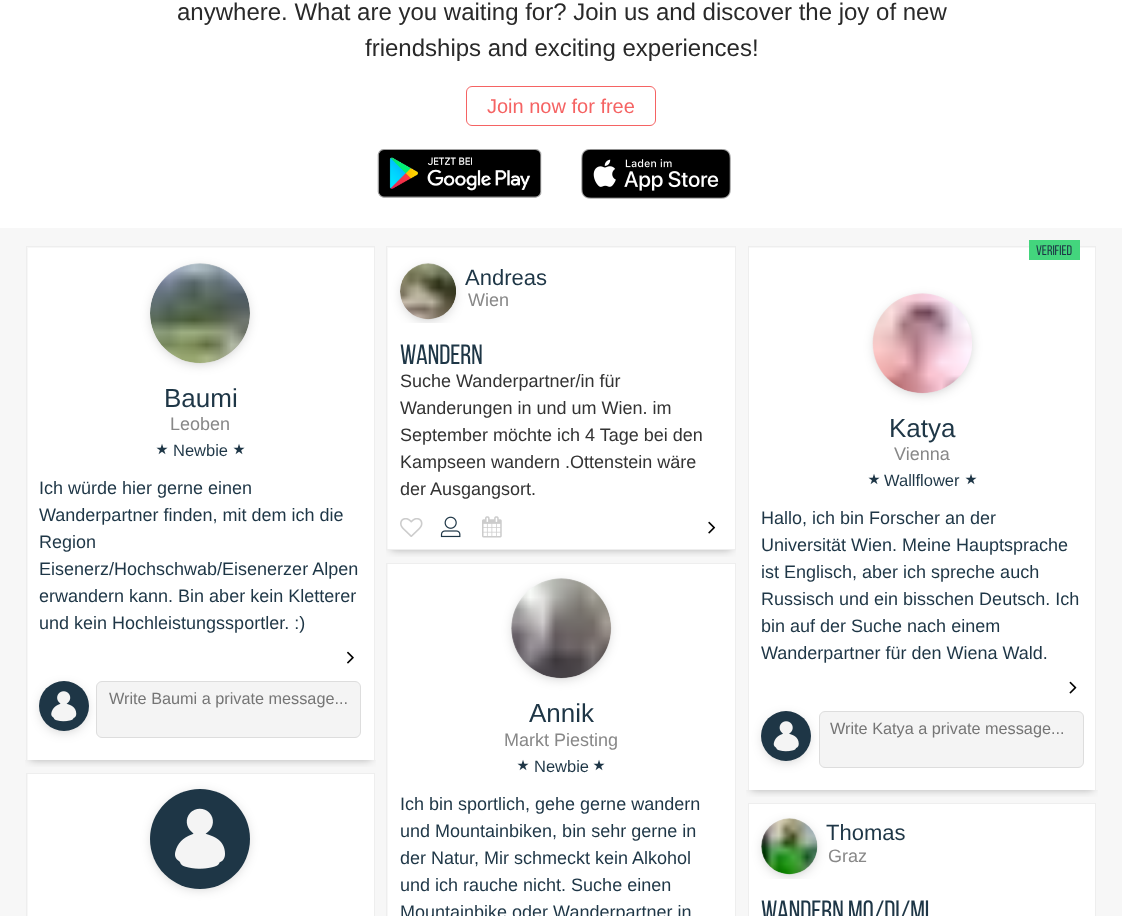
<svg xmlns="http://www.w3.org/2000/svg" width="1122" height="916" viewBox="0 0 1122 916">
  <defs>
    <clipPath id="clip1"><path d="M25 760h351v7H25z"/></clipPath>
    <clipPath id="clip2"><path d="M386 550h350v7H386z"/></clipPath>
    <clipPath id="clip3"><path d="M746 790h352v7H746z"/></clipPath>
  </defs>
  <rect width="100%" height="100%" fill="#fff"/>
  <rect x="466.5" y="86.5" width="189" height="39" rx="5.5" fill="none" stroke="#f56363"/>
  <image x="377" y="149" width="165" height="49" href="img/1.png"/>
  <image x="581" y="149" width="150" height="50" href="img/2.png"/>
  <path d="M0 228h1122v688H0z" fill="#f7f7f7"/>
  <g clip-path="url(#clip1)">
    <path d="M30 265h341v494H30z" fill="#00000059" filter="blur(5px)"/>
  </g>
  <path d="M26 246h349v1H26z" fill="#eee"/>
  <path d="M374 246h1v514H374z" fill="#eee"/>
  <path d="M26 246h1v514H26z" fill="#eee"/>
  <path d="M28 248h346v512H28z" fill="#fff"/>
  <rect x="155" y="271" width="90" height="90" rx="45" fill="#0000004d" filter="blur(7px)"/>
  <image x="150" y="263" width="100" height="101" href="img/3.png"/>
  <image x="347" y="651" width="7" height="13" href="img/4.png"/>
  <rect x="44" y="689" width="40" height="40" rx="20" fill="#0000004d" filter="blur(7px)"/>
  <circle cx="64" cy="706" r="25" fill="#1e3646"/>
  <image x="51" y="691" width="26" height="31" href="img/5.png"/>
  <rect x="96.5" y="681.5" width="264" height="56" rx="5.5" fill="#f4f4f4" stroke="#ddd"/>
  <path d="M26 773h349v1H26z" fill="#eee"/>
  <path d="M374 773h1v143H374z" fill="#eee"/>
  <path d="M26 773h1v143H26z" fill="#eee"/>
  <path d="M28 774h346v142H28z" fill="#fff"/>
  <rect x="155" y="796" width="90" height="90" rx="45" fill="#0000004d" filter="blur(7px)"/>
  <circle cx="200" cy="839" r="50" fill="#1e3646"/>
  <image x="175" y="808" width="50" height="61" href="img/6.png"/>
  <g clip-path="url(#clip2)">
    <path d="M391 265h340v284H391z" fill="#00000059" filter="blur(5px)"/>
  </g>
  <path d="M386 246h350v1H386z" fill="#eee"/>
  <path d="M735 246h1v304H735z" fill="#eee"/>
  <path d="M386 246h1v77H386z" fill="#eee"/>
  <path d="M388 248h347v75H388z" fill="#fff"/>
  <path d="M386 549h350v1H386z" fill="#eee"/>
  <path d="M386 323h1v227H386z" fill="#eee"/>
  <rect x="405" y="271" width="46" height="47" rx="23" fill="#0000004d" filter="blur(7px)"/>
  <image x="400" y="263" width="56" height="57" href="img/7.png"/>
  <path d="M388 323h347v226H388z" fill="#fff"/>
  <image x="400" y="518" width="23" height="19" href="img/8.png"/>
  <image x="440" y="516" width="21" height="22" href="img/9.png"/>
  <image x="482" y="516" width="20" height="22" href="img/10.png"/>
  <image x="708" y="521" width="8" height="13" href="img/11.png"/>
  <path d="M386 563h350v1H386z" fill="#eee"/>
  <path d="M735 563h1v353H735z" fill="#eee"/>
  <path d="M386 563h1v353H386z" fill="#eee"/>
  <path d="M388 564h347v352H388z" fill="#fff"/>
  <rect x="516" y="586" width="90" height="90" rx="45" fill="#0000004d" filter="blur(7px)"/>
  <image x="511" y="578" width="101" height="101" href="img/12.png"/>
  <g clip-path="url(#clip3)">
    <path d="M751 265h342v524H751z" fill="#00000059" filter="blur(5px)"/>
  </g>
  <path d="M748 246h348v1H748z" fill="#eee"/>
  <path d="M1095 246h1v544H1095z" fill="#eee"/>
  <path d="M748 246h1v544H748z" fill="#eee"/>
  <path d="M749 248h346v542H749z" fill="#fff"/>
  <path d="M1029 240h51v20H1029z" fill="#43d57d"/>
  <rect x="878" y="301" width="90" height="90" rx="45" fill="#0000004d" filter="blur(7px)"/>
  <image x="872" y="293" width="100" height="101" href="img/13.png"/>
  <image x="1069" y="681" width="8" height="13" href="img/14.png"/>
  <rect x="766" y="719" width="40" height="40" rx="20" fill="#0000004d" filter="blur(7px)"/>
  <circle cx="786" cy="736" r="25" fill="#1e3646"/>
  <image x="773" y="721" width="26" height="31" href="img/15.png"/>
  <rect x="819.5" y="711.5" width="264" height="56" rx="5.5" fill="#f4f4f4" stroke="#ddd"/>
  <path d="M748 803h348v1H748z" fill="#eee"/>
  <path d="M1095 803h1v113H1095z" fill="#eee"/>
  <path d="M748 803h1v113H748z" fill="#eee"/>
  <path d="M749 804h346v75H749z" fill="#fff"/>
  <rect x="766" y="826" width="47" height="47" rx="23.5" fill="#0000004d" filter="blur(7px)"/>
  <image x="761" y="818" width="57" height="57" href="img/16.png"/>
  <path d="M749 879h346v37H749z" fill="#fff"/>
  <g font-family="Liberation Sans" font-size="24" fill="#292929">
    <text x="177" y="20">anywhere. What are you waiting for? Join us and discover the joy of new</text>
    <text x="365" y="56">friendships and exciting experiences!</text>
  </g>
  <text x="487" y="113" font-family="Liberation Sans" font-size="20" fill="#f56363">Join now for free</text>
  <text x="164" y="407" font-family="Liberation Sans" font-size="26" fill="#1e3646">Baumi</text>
  <text x="170" y="430" font-family="Liberation Sans" font-size="18" fill="#888">Leoben</text>
  <text x="156" y="454" font-family="DejaVu Sans" font-size="13" font-weight="bold" fill="#1e3646">★</text>
  <text x="173" y="456" font-family="Liberation Sans" font-size="16.5" fill="#1e3646">Newbie</text>
  <text x="233" y="454" font-family="DejaVu Sans" font-size="13" font-weight="bold" fill="#1e3646">★</text>
  <g font-family="Liberation Sans" font-size="18" fill="#1e3646">
    <text x="39" y="494">Ich würde hier gerne einen</text>
    <text x="39" y="521">Wanderpartner finden, mit dem ich die</text>
    <text x="39" y="548">Region</text>
    <text x="39" y="575">Eisenerz/Hochschwab/Eisenerzer Alpen</text>
    <text x="39" y="602">erwandern kann. Bin aber kein Kletterer</text>
    <text x="39" y="629">und kein Hochleistungssportler. :)</text>
  </g>
  <text x="109" y="704" font-family="Liberation Sans" font-size="16.25" fill="#757575">Write Baumi a private message...</text>
  <text x="465" y="285" font-family="Liberation Sans" font-size="22" fill="#1e3646">Andreas</text>
  <text x="468" y="306" font-family="Liberation Sans" font-size="18" fill="#888">Wien</text>
  <text x="400" y="364" font-family="Bebas Neue" font-size="28" fill="#1e3646">Wandern</text>
  <g font-family="Liberation Sans" font-size="18" fill="#333">
    <text x="400" y="387">Suche Wanderpartner/in für</text>
    <text x="400" y="414">Wanderungen in und um Wien. im</text>
    <text x="400" y="441">September möchte ich 4 Tage bei den</text>
    <text x="400" y="468">Kampseen wandern .Ottenstein wäre</text>
    <text x="400" y="495">der Ausgangsort.</text>
  </g>
  <text x="529" y="722" font-family="Liberation Sans" font-size="26" fill="#1e3646">Annik</text>
  <text x="504" y="746" font-family="Liberation Sans" font-size="18" fill="#888">Markt Piesting</text>
  <text x="517" y="770" font-family="DejaVu Sans" font-size="13" font-weight="bold" fill="#1e3646">★</text>
  <text x="534" y="772" font-family="Liberation Sans" font-size="16.5" fill="#1e3646">Newbie</text>
  <text x="593" y="770" font-family="DejaVu Sans" font-size="13" font-weight="bold" fill="#1e3646">★</text>
  <g font-family="Liberation Sans" font-size="18" fill="#1e3646">
    <text x="400" y="810">Ich bin sportlich, gehe gerne wandern</text>
    <text x="400" y="837">und Mountainbiken, bin sehr gerne in</text>
    <text x="400" y="864">der Natur, Mir schmeckt kein Alkohol</text>
    <text x="400" y="891">und ich rauche nicht. Suche einen</text>
    <text x="400" y="918">Mountainbike oder Wanderpartner in</text>
  </g>
  <text x="1036" y="255" font-family="Bebas Neue" font-size="14" fill="#1e3646">VERIFIED</text>
  <text x="889" y="437" font-family="Liberation Sans" font-size="26" fill="#1e3646">Katya</text>
  <text x="894" y="460" font-family="Liberation Sans" font-size="18" fill="#888">Vienna</text>
  <text x="868" y="484" font-family="DejaVu Sans" font-size="13" font-weight="bold" fill="#1e3646">★</text>
  <text x="884" y="486" font-family="Liberation Sans" font-size="16.5" fill="#1e3646">Wallflower</text>
  <text x="965" y="484" font-family="DejaVu Sans" font-size="13" font-weight="bold" fill="#1e3646">★</text>
  <g font-family="Liberation Sans" font-size="18" fill="#1e3646">
    <text x="761" y="524">Hallo, ich bin Forscher an der</text>
    <text x="761" y="551">Universität Wien. Meine Hauptsprache</text>
    <text x="761" y="578">ist Englisch, aber ich spreche auch</text>
    <text x="761" y="605">Russisch und ein bisschen Deutsch. Ich</text>
    <text x="761" y="632">bin auf der Suche nach einem</text>
    <text x="761" y="659">Wanderpartner für den Wiena Wald.</text>
  </g>
  <text x="830" y="734" font-family="Liberation Sans" font-size="16.25" fill="#757575">Write Katya a private message...</text>
  <text x="826" y="840" font-family="Liberation Sans" font-size="22" fill="#1e3646">Thomas</text>
  <text x="828" y="862" font-family="Liberation Sans" font-size="18" fill="#888">Graz</text>
  <text x="761" y="920" font-family="Bebas Neue" font-size="28" fill="#1e3646">Wandern Mo/Di/Mi</text>
</svg>
